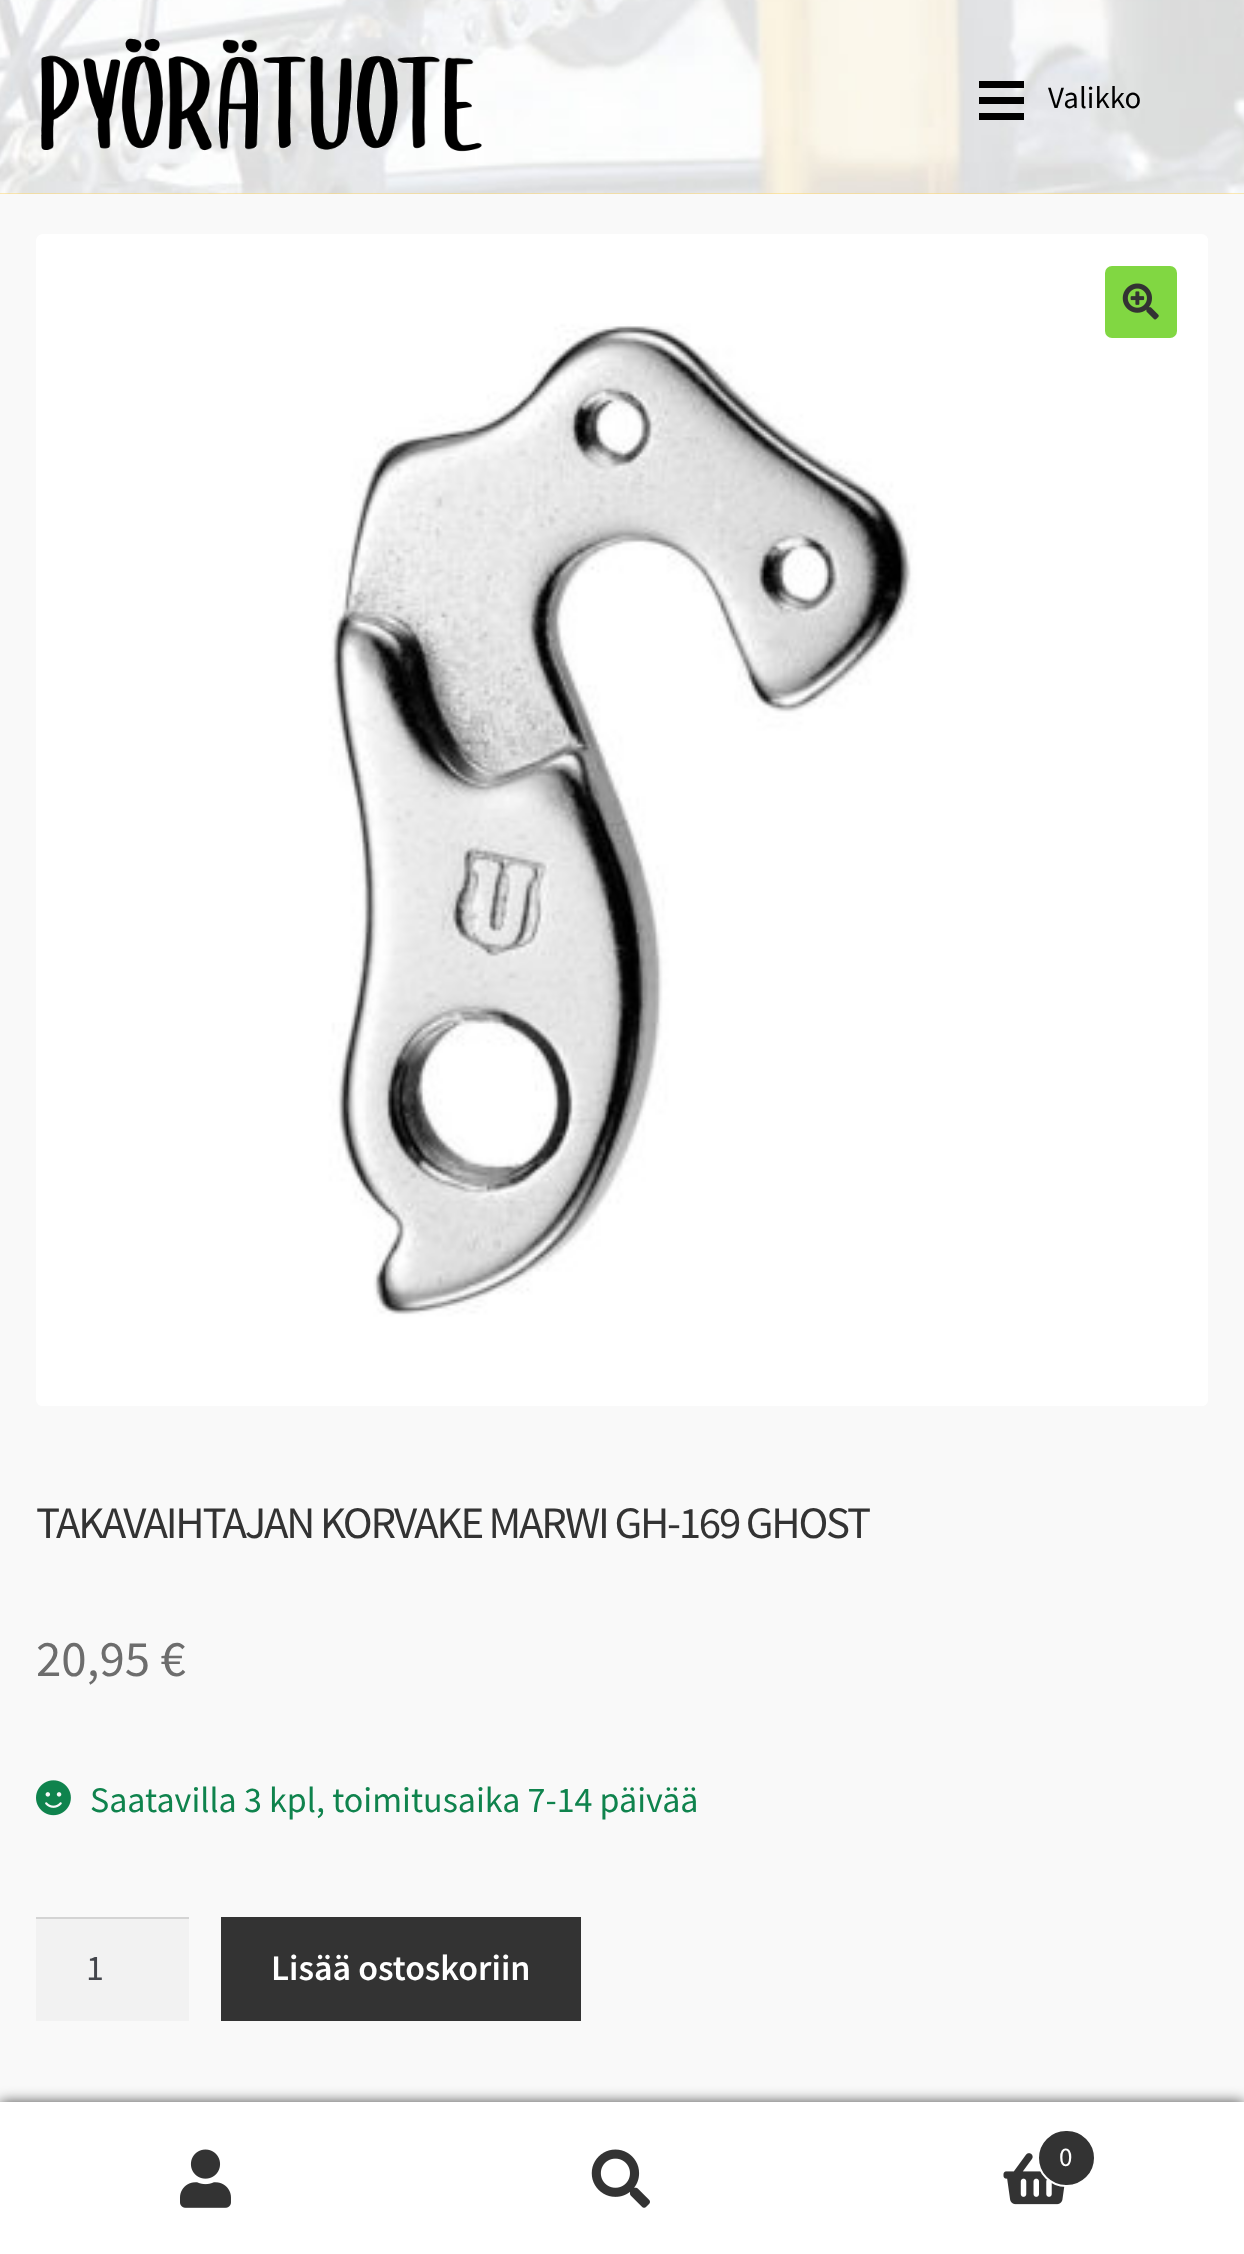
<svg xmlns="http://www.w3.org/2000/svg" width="1244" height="2254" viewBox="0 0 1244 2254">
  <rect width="100%" height="100%" fill="#f9f9f9"/>
  <path d="M0 193h1244v1H0z" fill="#ffd76b"/>
  <image x="0" y="0" width="1244" height="194" href="img/1.png"/>
  <image x="41" y="38" width="441" height="114" href="img/2.png"/>
  <path d="M979 81h45v7H979z" fill="#000"/>
  <path d="M979 97h45v7H979z" fill="#000"/>
  <path d="M979 113h45v7H979z" fill="#000"/>
  <image x="36" y="234" width="1172" height="1172" href="img/3.png"/>
  <rect x="1105" y="266" width="72" height="72" rx="7" fill="#81d742"/>
  <image x="1122" y="283" width="37" height="37" href="img/4.png"/>
  <image x="36" y="1780" width="35" height="36" href="img/5.png"/>
  <path d="M36 1919h153v102H36z" fill="#f2f2f2"/>
  <path d="M36 1917h153v2H36z" fill="#d4d4d4"/>
  <path d="M221 1917h360v104H221z" fill="#333"/>
  <path d="M0 2102h1244v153H0z" fill="#000000b3" filter="blur(7px)"/>
  <path d="M0 2102h1244v152H0z" fill="#fff"/>
  <image x="180" y="2149" width="51" height="59" href="img/6.png"/>
  <image x="591" y="2149" width="59" height="59" href="img/7.png"/>
  <image x="1003" y="2153" width="62" height="52" href="img/8.png"/>
  <rect x="1038" y="2130" width="57" height="56" rx="28" fill="#333" stroke="#fff" stroke-width="2"/>
  <text x="1048" y="108" font-family="Source Sans Pro" font-size="31" fill="#000">Valikko</text>
  <text x="36" y="1538" font-family="Source Sans Pro" font-size="45" letter-spacing="-2.25" fill="#333">TAKAVAIHTAJAN KORVAKE MARWI GH-169 GHOST</text>
  <text x="36" y="1676" font-family="Source Sans Pro" font-size="51" fill="#6d6d6d">20,95 €</text>
  <text x="90" y="1812" font-family="Source Sans Pro" font-size="36" fill="#0f834d">Saatavilla 3 kpl, toimitusaika 7-14 päivää</text>
  <text x="86" y="1980" font-family="Source Sans Pro" font-size="36" fill="#43454b">1</text>
  <text x="271" y="1980" font-family="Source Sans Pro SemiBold" font-size="36" font-weight="600" fill="#fff">Lisää ostoskoriin</text>
  <text x="1059" y="2166" font-family="Source Sans Pro" font-size="27" fill="#fff">0</text>
</svg>
